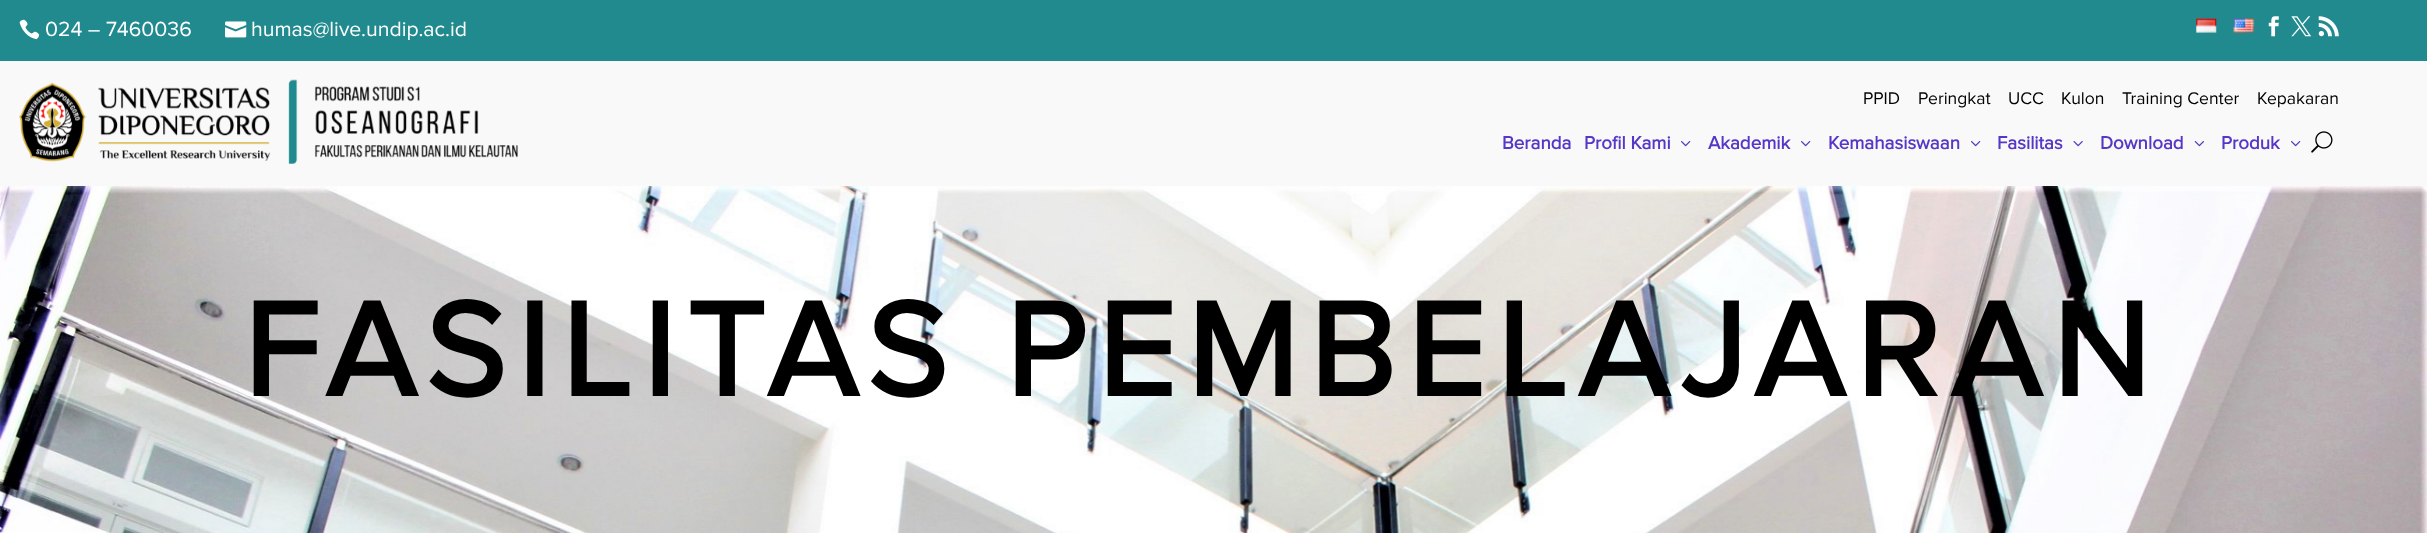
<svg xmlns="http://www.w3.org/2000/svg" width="2427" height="533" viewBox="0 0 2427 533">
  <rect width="100%" height="100%" fill="#fff"/>
  <path d="M0 0h2427v61H0z" fill="#218a8e"/>
  <image x="19" y="19" width="21" height="21" href="img/1.png"/>
  <image x="225" y="21" width="22" height="17" href="img/2.png"/>
  <image x="2196" y="18" width="21" height="15" href="img/3.png"/>
  <image x="2233" y="18" width="22" height="15" href="img/4.png"/>
  <image x="2268" y="16" width="11" height="21" href="img/5.png"/>
  <image x="2291" y="16" width="21" height="21" href="img/6.png"/>
  <image x="2318" y="16" width="21" height="21" href="img/7.png"/>
  <path d="M0 61h2427v125H0z" fill="#f9f9f9"/>
  <image x="19" y="79" width="499" height="85" href="img/8.png"/>
  <image x="1681" y="141" width="10" height="6" href="img/9.png"/>
  <image x="1801" y="141" width="10" height="6" href="img/9.png"/>
  <image x="1971" y="141" width="10" height="6" href="img/9.png"/>
  <image x="2073" y="141" width="10" height="6" href="img/10.png"/>
  <image x="2194" y="141" width="10" height="6" href="img/11.png"/>
  <image x="2291" y="141" width="10" height="6" href="img/9.png"/>
  <image x="2311" y="131" width="22" height="22" href="img/12.png"/>
  <image x="0" y="186" width="2427" height="347" href="img/13.png"/>
  <g font-family="Proxima Nova" font-size="21.25" fill="#fff">
    <text x="45" y="36">024 – 7460036</text>
    <text x="251" y="36">humas@live.undip.ac.id</text>
  </g>
  <g font-family="Proxima Nova" font-size="17.5" fill="#000">
    <text x="1863" y="104">PPID</text>
    <text x="1918" y="104">Peringkat</text>
    <text x="2008" y="104">UCC</text>
    <text x="2061" y="104">Kulon</text>
    <text x="2122" y="104">Training Center</text>
    <text x="2257" y="104">Kepakaran</text>
  </g>
  <g font-family="Proxima Nova" font-size="18.75" font-weight="bold" fill="#5737c7">
    <text x="1502" y="149">Beranda</text>
    <text x="1584" y="149">Profil Kami</text>
    <text x="1708" y="149">Akademik</text>
    <text x="1828" y="149">Kemahasiswaan</text>
    <text x="1997" y="149">Fasilitas</text>
    <text x="2100" y="149">Download</text>
    <text x="2221" y="149">Produk</text>
  </g>
  <text x="243" y="396" font-family="Proxima Nova" font-size="137.5" font-weight="bold" letter-spacing="11.25" fill="#000">FASILITAS PEMBELAJARAN</text>
</svg>
